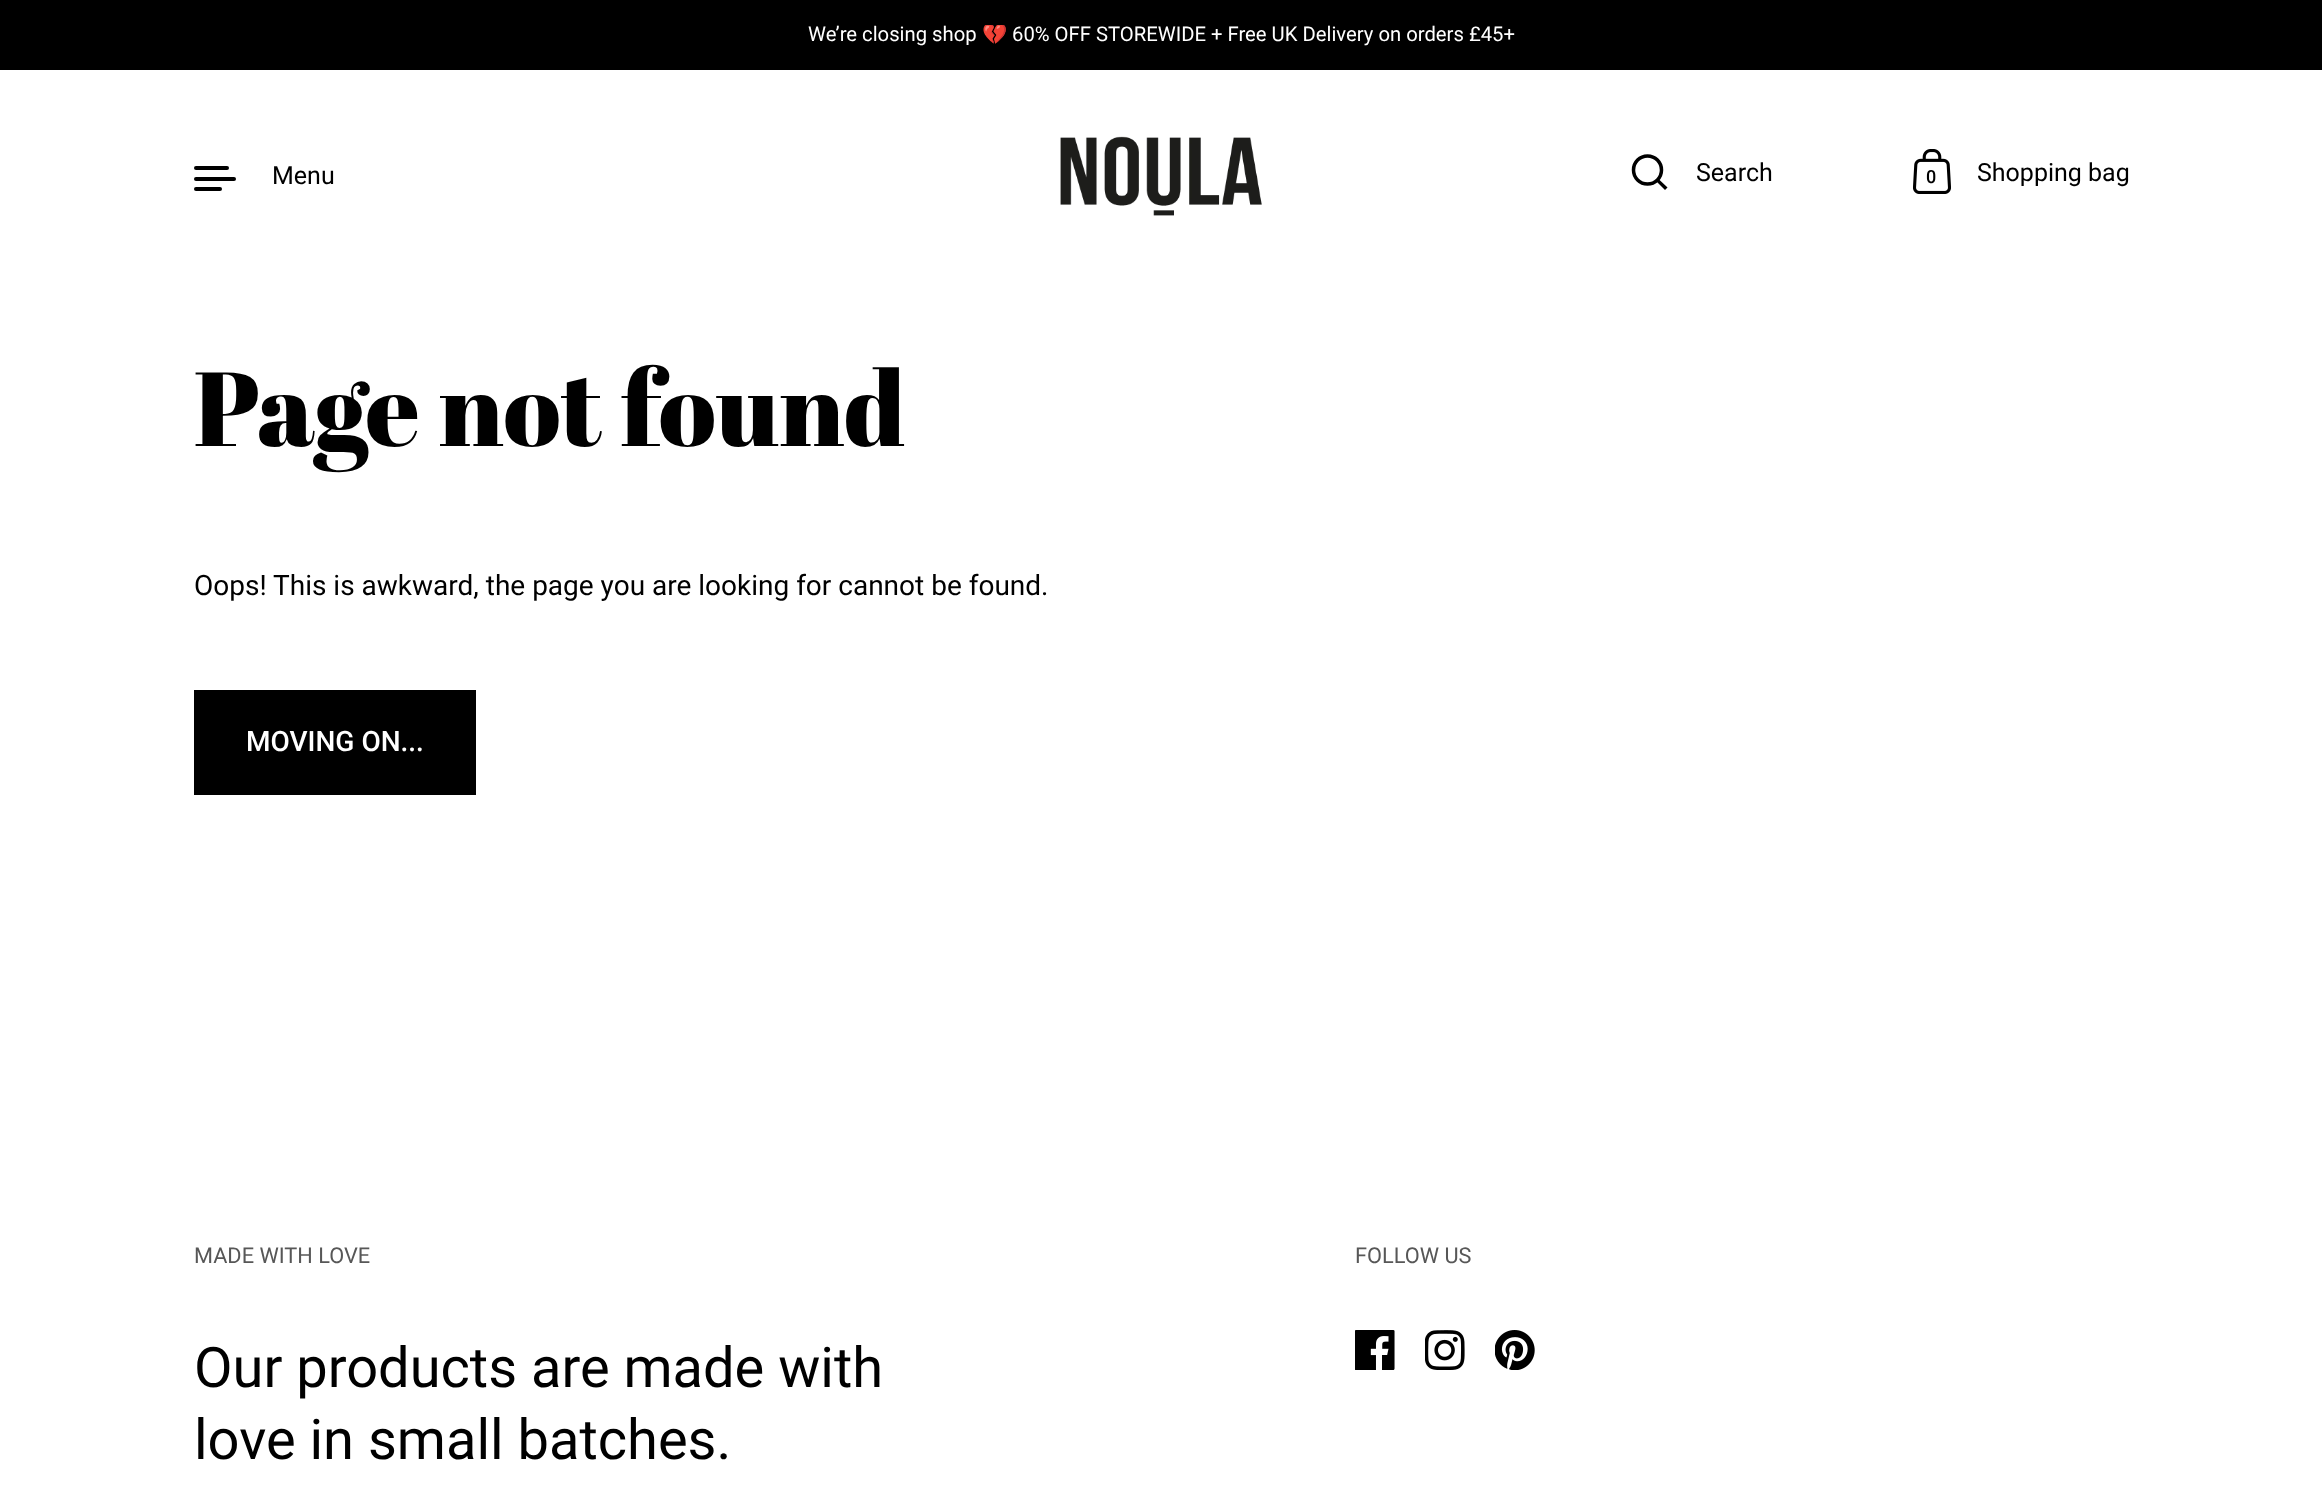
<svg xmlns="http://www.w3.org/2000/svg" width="2322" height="1493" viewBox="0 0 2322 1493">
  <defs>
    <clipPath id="clip1"><path d="M809 25h705v21H809z"/></clipPath>
  </defs>
  <rect width="100%" height="100%" fill="#fff"/>
  <path d="M0 0h2322v70H0z" fill="#000"/>
  <rect x="194" y="166" width="35" height="4" rx="2" fill="#000"/>
  <rect x="194" y="177" width="42" height="4" rx="2" fill="#000"/>
  <rect x="194" y="187" width="28" height="4" rx="2" fill="#000"/>
  <image x="1060" y="136" width="202" height="80" href="img/1.png"/>
  <circle cx="1647.5" cy="170" r="14" fill="none" stroke="#000" stroke-width="3.5"/>
  <path d="M1657 182L1659 179.5L1667.5 187.5L1665 190Z" fill="#000"/>
  <image x="1913" y="149" width="38" height="45" href="img/2.png"/>
  <path d="M194 690h282v105H194z" fill="#000"/>
  <image x="1355" y="1330" width="40" height="40" href="img/3.png"/>
  <image x="1425" y="1330" width="40" height="40" href="img/4.png"/>
  <image x="1495" y="1330" width="40" height="40" href="img/5.png"/>
  <text x="808" y="41" font-family="Roboto" font-size="20.25" fill="#fff">We’re closing shop</text>
  <g clip-path="url(#clip1)">
    <text x="982" y="41" font-family="Noto Color Emoji" font-size="20.25" fill="#fff">💔</text>
  </g>
  <text x="1012" y="41" font-family="Roboto" font-size="20.25" fill="#fff">60% OFF STOREWIDE + Free UK Delivery on orders £45+</text>
  <g font-family="Roboto" font-size="25" fill="#000">
    <text x="272" y="184">Menu</text>
    <text x="1696" y="181">Search</text>
  </g>
  <text x="1926" y="183" font-family="Roboto" font-size="18" font-weight="500" fill="#000">0</text>
  <text x="1977" y="181" font-family="Roboto" font-size="25" fill="#000">Shopping bag</text>
  <text x="194" y="446" font-family="Abril Fatface" font-size="105" fill="#000">Page not found</text>
  <text x="194" y="595" font-family="Roboto" font-size="28" fill="#000">Oops! This is awkward, the page you are looking for cannot be found.</text>
  <text x="246" y="751" font-family="Roboto" font-size="28" font-weight="500" fill="#fff">MOVING ON...</text>
  <text x="194" y="1263" font-family="Roboto" font-size="21.75" fill="#575757">MADE WITH LOVE</text>
  <g font-family="Roboto" font-size="56" fill="#000">
    <text x="194" y="1387">Our products are made with</text>
    <text x="194" y="1459">love in small batches.</text>
  </g>
  <text x="1355" y="1263" font-family="Roboto" font-size="21.75" fill="#575757">FOLLOW US</text>
</svg>
